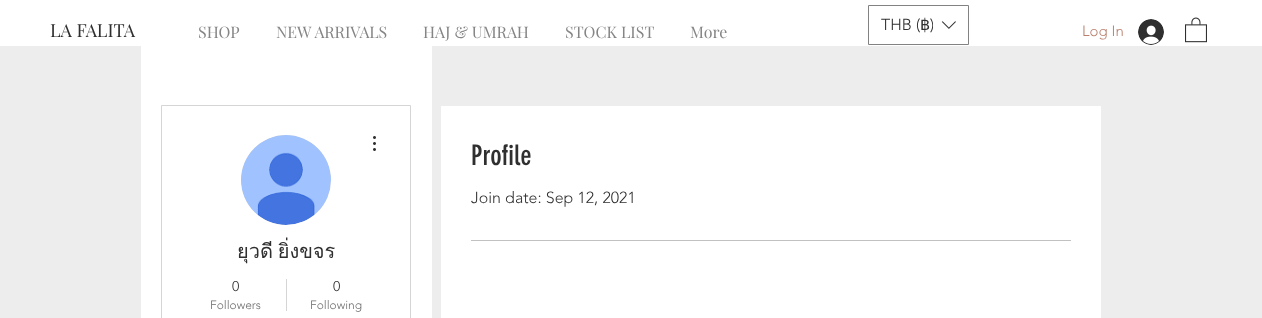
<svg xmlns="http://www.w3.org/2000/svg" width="1262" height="318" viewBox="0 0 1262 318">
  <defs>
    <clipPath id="clip1"><path d="M881 14h52v22H881z"/></clipPath>
  </defs>
  <rect width="100%" height="100%" fill="#ededee"/>
  <path d="M0 0h1262v46H0z" fill="#fff"/>
  <path d="M868.5 5.5h100v39H868.5z" fill="none" stroke="#828283"/>
  <image x="941" y="21" width="15" height="8" href="img/1.png"/>
  <image x="1138" y="19" width="26" height="26" href="img/2.png"/>
  <image x="1185" y="17" width="22" height="26" href="img/3.png"/>
  <path d="M441 106h660v212H441z" fill="#fff"/>
  <path d="M471 240h600v1H471z" fill="#c1c1c1"/>
  <path d="M141 46h291v272H141z" fill="#fff"/>
  <path d="M161.5 105.5h249v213H161.5z" fill="none" stroke="#d5d5d6"/>
  <circle cx="286" cy="180" r="45" fill="#d8d8d8"/>
  <image x="241" y="135" width="90" height="90" href="img/4.png"/>
  <image x="373" y="136" width="3" height="15" href="img/5.png"/>
  <path d="M286 279h1v32H286z" fill="#d5d5d6"/>
  <text x="50" y="37" font-family="Playfair Display" font-size="18" fill="#2f2f30">LA FALITA</text>
  <g font-family="Playfair Display" font-size="16" fill="#858585">
    <text x="198" y="38">SHOP</text>
    <text x="276" y="38">NEW ARRIVALS</text>
    <text x="423" y="38">HAJ &amp; UMRAH</text>
    <text x="565" y="38">STOCK LIST</text>
    <text x="690" y="38">More</text>
  </g>
  <text x="881" y="30" font-family="'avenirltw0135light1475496'" font-size="16" font-weight="300" fill="#2f2f30">THB (</text>
  <text x="920" y="30" font-family="DejaVu Sans" font-size="16" fill="#2f2f30">฿</text>
  <g clip-path="url(#clip1)">
    <text x="930" y="30" font-family="'avenirltw0135light1475496'" font-size="16" font-weight="300" fill="#2f2f30">)</text>
  </g>
  <text x="1082" y="36" font-family="'avenirltw0135light1475496'" font-size="15" font-weight="300" fill="#b97f6d">Log In</text>
  <text x="471" y="165" font-family="'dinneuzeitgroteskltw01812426'" font-size="28" fill="#2f2f30">Profile</text>
  <text x="471" y="203" font-family="'avenirltw0135light1475496'" font-size="16" font-weight="300" fill="#2f2f30">Join date: Sep 12, 2021</text>
  <text x="237" y="258" word-spacing="-2" font-family="Loma" font-size="20" fill="#2f2f30">ยุวดี ยิ่งขจร</text>
  <text x="232" y="291" font-family="'avenirltw0135light1475496'" font-size="14" font-weight="300" fill="#2f2f30">0</text>
  <text x="210" y="309" font-family="'avenirltw0135light1475496'" font-size="12" font-weight="300" fill="#6d6d6e">Followers</text>
  <text x="333" y="291" font-family="'avenirltw0135light1475496'" font-size="14" font-weight="300" fill="#2f2f30">0</text>
  <text x="310" y="309" font-family="'avenirltw0135light1475496'" font-size="12" font-weight="300" fill="#6d6d6e">Following</text>
</svg>
